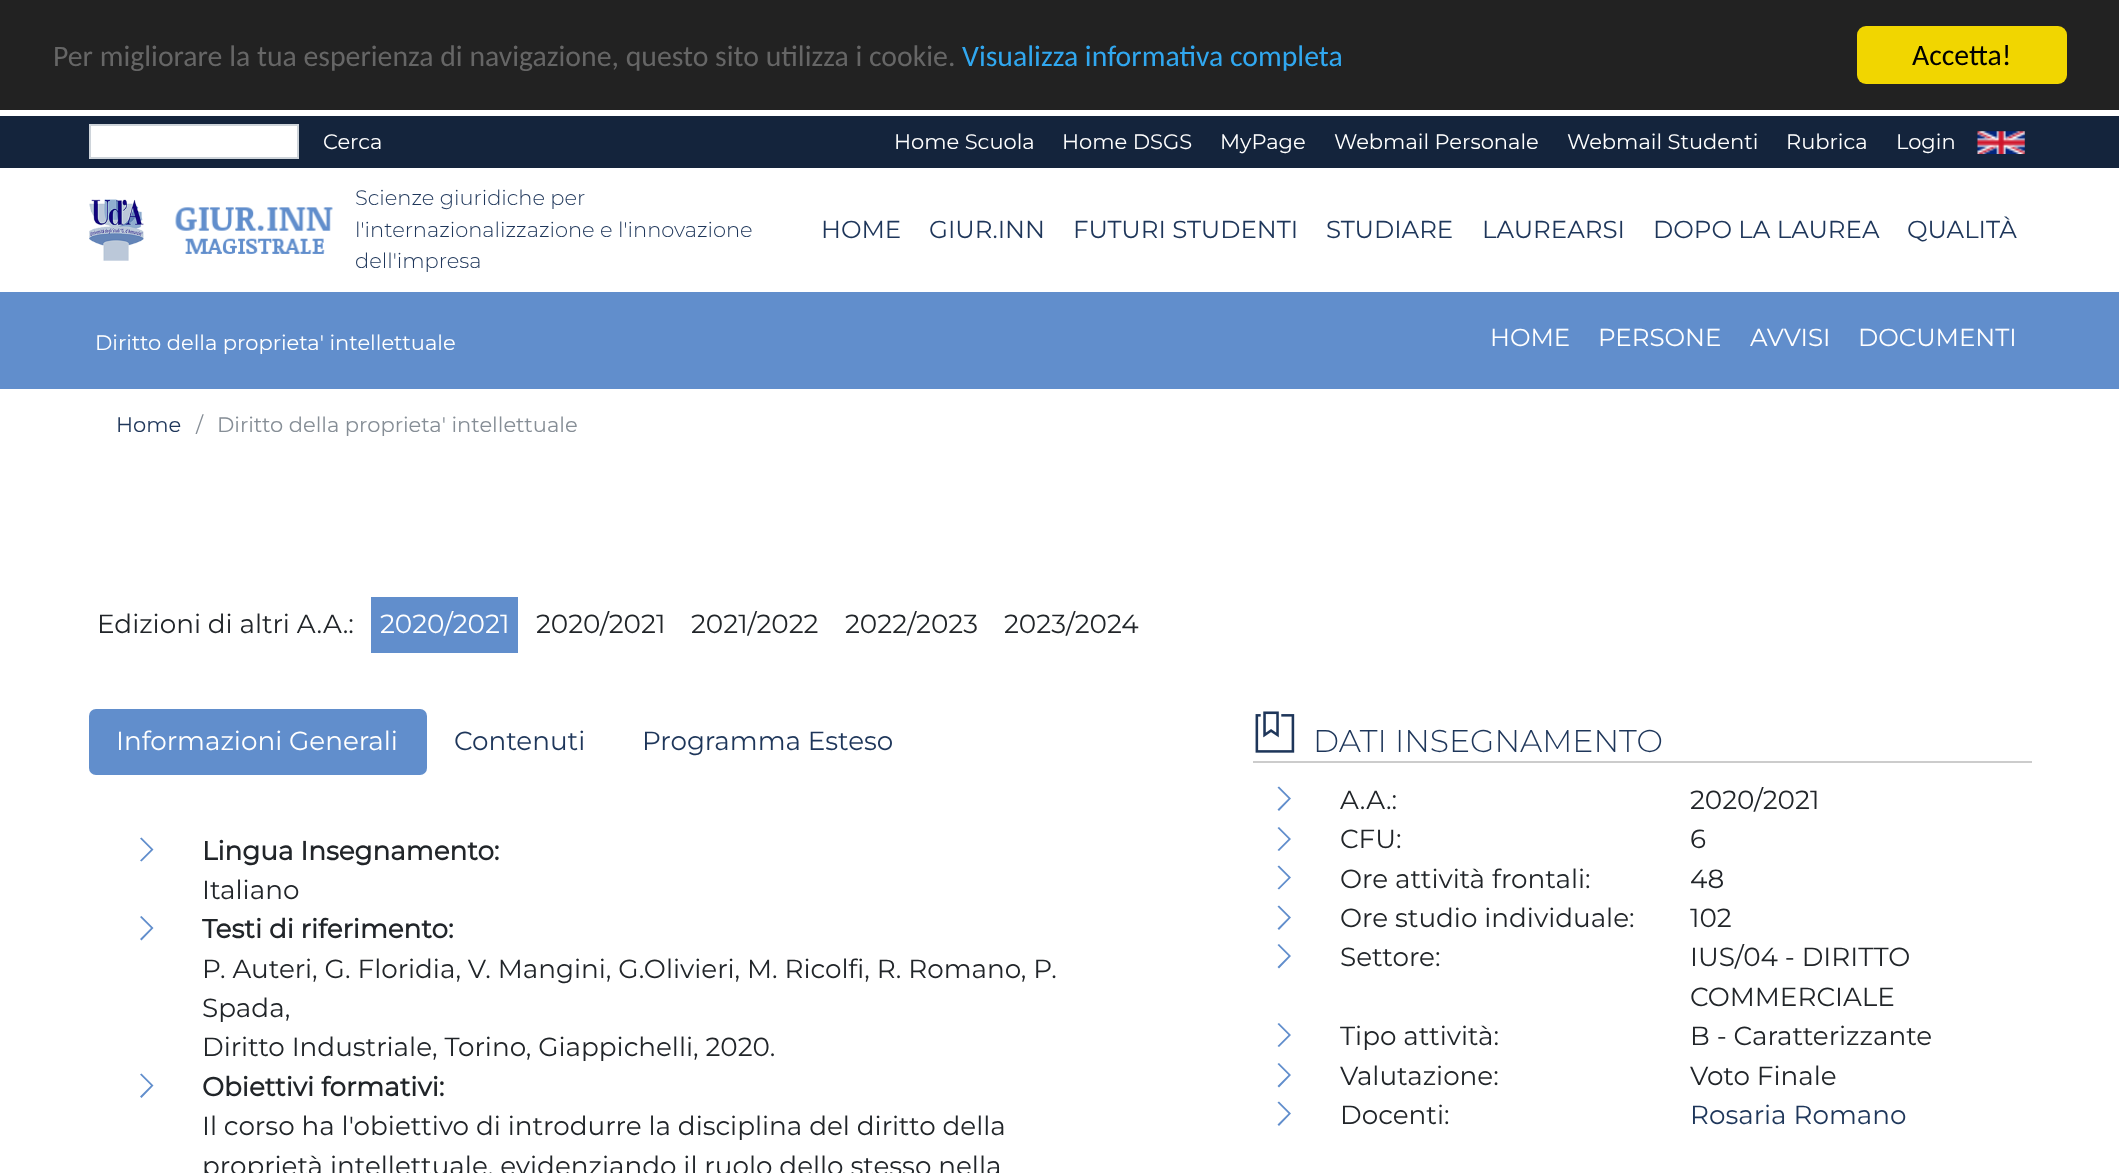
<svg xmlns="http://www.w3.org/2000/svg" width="2119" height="1173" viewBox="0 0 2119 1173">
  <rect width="100%" height="100%" fill="#fff"/>
  <path d="M0 0h2119v110H0z" fill="#222"/>
  <rect x="1857" y="26" width="210" height="58" rx="9" fill="#f1d600"/>
  <path d="M0 116h2119v52H0z" fill="#14243c"/>
  <path d="M90 125h208v33H90z" fill="#fff" stroke="#ced4da" stroke-width="2"/>
  <image x="1977" y="131" width="48" height="23" href="img/1.png"/>
  <path d="M0 292h2119v97H0z" fill="#618ecc"/>
  <image x="89" y="199" width="55" height="62" href="img/2.png"/>
  <image x="175" y="207" width="158" height="47" href="img/3.png"/>
  <path d="M371 597h147v56H371z" fill="#618ecc"/>
  <rect x="89" y="709" width="338" height="66" rx="7" fill="#618ecc"/>
  <path d="M153.5 849.5L141.5 861.5L140 860.5L151 849.5L140 838.5L141.5 837.5Z" fill="#618ecc"/>
  <path d="M153.5 928L141.5 940.5L140 939L151 928L140 917L141.5 916Z" fill="#618ecc"/>
  <path d="M153.5 1085.5L141.5 1098L140 1096.5L151 1085.5L140 1074.5L141.5 1073.5Z" fill="#618ecc"/>
  <path d="M1253 761h779v2H1253z" fill="#ccc"/>
  <image x="1255" y="711" width="40" height="42" href="img/4.png"/>
  <path d="M1291 798.5L1279 811L1277.5 809.5L1288.5 798.5L1277.5 787.5L1279 786.5Z" fill="#618ecc"/>
  <path d="M1291 839L1279 851L1277.5 850L1288.5 839L1277.5 828L1279 827ZM1291 877.5L1279 889.5L1277.5 888.5L1288.5 877.5L1277.5 866.5L1279 865.5Z" fill="#618ecc"/>
  <path d="M1291 917.5L1279 930L1277.5 928.5L1288.5 917.5L1277.5 906.5L1279 905.5Z" fill="#618ecc"/>
  <path d="M1291 956L1279 968.5L1277.5 967L1288.5 956L1277.5 945L1279 944Z" fill="#618ecc"/>
  <path d="M1291 1035L1279 1047L1277.5 1046L1288.5 1035L1277.5 1024L1279 1023Z" fill="#618ecc"/>
  <path d="M1291 1075L1279 1087.5L1277.5 1086L1288.5 1075L1277.5 1064L1279 1063ZM1291 1113.5L1279 1126L1277.5 1124.5L1288.5 1113.5L1277.5 1102.5L1279 1101.5Z" fill="#618ecc"/>
  <text x="53" y="66" font-family="Carlito" font-size="29.75" fill="#666">Per migliorare la tua esperienza di navigazione, questo sito utilizza i cookie.</text>
  <text x="962" y="66" font-family="Carlito" font-size="29.75" fill="#31a8f0">Visualizza informativa completa</text>
  <text x="1912" y="65" font-family="Carlito" font-size="29.75" fill="#000">Accetta!</text>
  <g font-family="Montserrat" font-size="21" fill="#fff">
    <text x="323" y="149">Cerca</text>
    <text x="894" y="149">Home Scuola</text>
    <text x="1062" y="149">Home DSGS</text>
    <text x="1220" y="149">MyPage</text>
    <text x="1334" y="149">Webmail Personale</text>
    <text x="1567" y="149">Webmail Studenti</text>
    <text x="1786" y="149">Rubrica</text>
    <text x="1896" y="149">Login</text>
  </g>
  <g font-family="Montserrat" font-size="21" font-weight="300" fill="#1e365a">
    <text x="355" y="205">Scienze giuridiche per</text>
    <text x="355" y="237">l'internazionalizzazione e l'innovazione</text>
    <text x="355" y="268">dell'impresa</text>
  </g>
  <g font-family="Montserrat" font-size="24.5" fill="#1e365a">
    <text x="821" y="238">HOME</text>
    <text x="929" y="238">GIUR.INN</text>
    <text x="1073" y="238">FUTURI STUDENTI</text>
    <text x="1326" y="238">STUDIARE</text>
    <text x="1482" y="238">LAUREARSI</text>
    <text x="1653" y="238">DOPO LA LAUREA</text>
    <text x="1907" y="238">QUALITÀ</text>
  </g>
  <text x="95" y="350" font-family="Montserrat" font-size="21" fill="#fff">Diritto della proprieta' intellettuale</text>
  <g font-family="Montserrat" font-size="24.5" fill="#fff">
    <text x="1490" y="346">HOME</text>
    <text x="1598" y="346">PERSONE</text>
    <text x="1750" y="346">AVVISI</text>
    <text x="1858" y="346">DOCUMENTI</text>
  </g>
  <text x="116" y="432" font-family="Montserrat" font-size="21" fill="#1e365a">Home</text>
  <g font-family="Montserrat" font-size="21" fill="#868e96">
    <text x="196" y="432">/</text>
    <text x="217" y="432">Diritto della proprieta' intellettuale</text>
  </g>
  <text x="97" y="633" font-family="Montserrat" font-size="26.25" fill="#212529">Edizioni di altri A.A.:</text>
  <text x="380" y="633" font-family="Montserrat" font-size="26.25" fill="#fff">2020/2021</text>
  <g font-family="Montserrat" font-size="26.25" fill="#212529">
    <text x="536" y="633">2020/2021</text>
    <text x="691" y="633">2021/2022</text>
    <text x="845" y="633">2022/2023</text>
    <text x="1004" y="633">2023/2024</text>
  </g>
  <text x="116" y="750" font-family="Montserrat" font-size="26.25" fill="#fff">Informazioni Generali</text>
  <g font-family="Montserrat" font-size="26.25" fill="#1e365a">
    <text x="454" y="750">Contenuti</text>
    <text x="642" y="750">Programma Esteso</text>
  </g>
  <text x="202" y="860" font-family="Montserrat" font-size="26.25" font-weight="bold" fill="#212529">Lingua Insegnamento:</text>
  <text x="202" y="899" font-family="Montserrat" font-size="26.25" fill="#212529">Italiano</text>
  <text x="202" y="938" font-family="Montserrat" font-size="26.25" font-weight="bold" fill="#212529">Testi di riferimento:</text>
  <g font-family="Montserrat" font-size="26.25" fill="#212529">
    <text x="202" y="978">P. Auteri, G. Floridia, V. Mangini, G.Olivieri, M. Ricolfi, R. Romano, P.</text>
    <text x="202" y="1017">Spada,</text>
    <text x="202" y="1056">Diritto Industriale, Torino, Giappichelli, 2020.</text>
  </g>
  <text x="202" y="1096" font-family="Montserrat" font-size="26.25" font-weight="bold" fill="#212529">Obiettivi formativi:</text>
  <g font-family="Montserrat" font-size="26.25" fill="#212529">
    <text x="202" y="1135">Il corso ha l'obiettivo di introdurre la disciplina del diritto della</text>
    <text x="202" y="1175">proprietà intellettuale, evidenziando il ruolo dello stesso nella</text>
  </g>
  <text x="1313" y="752" font-family="Montserrat" font-size="31.5" font-weight="300" fill="#1e365a">DATI INSEGNAMENTO</text>
  <g font-family="Montserrat" font-size="26.25" fill="#212529">
    <text x="1340" y="809">A.A.:</text>
    <text x="1690" y="809">2020/2021</text>
    <text x="1340" y="848">CFU:</text>
    <text x="1690" y="848">6</text>
    <text x="1340" y="888">Ore attività frontali:</text>
    <text x="1690" y="888">48</text>
    <text x="1340" y="927">Ore studio individuale:</text>
    <text x="1690" y="927">102</text>
    <text x="1340" y="966">Settore:</text>
    <text x="1690" y="966">IUS/04 - DIRITTO</text>
    <text x="1690" y="1006">COMMERCIALE</text>
    <text x="1340" y="1045">Tipo attività:</text>
    <text x="1690" y="1045">B - Caratterizzante</text>
    <text x="1340" y="1085">Valutazione:</text>
    <text x="1690" y="1085">Voto Finale</text>
    <text x="1340" y="1124">Docenti:</text>
  </g>
  <text x="1690" y="1124" font-family="Montserrat" font-size="26.25" fill="#1e365a">Rosaria Romano</text>
</svg>
